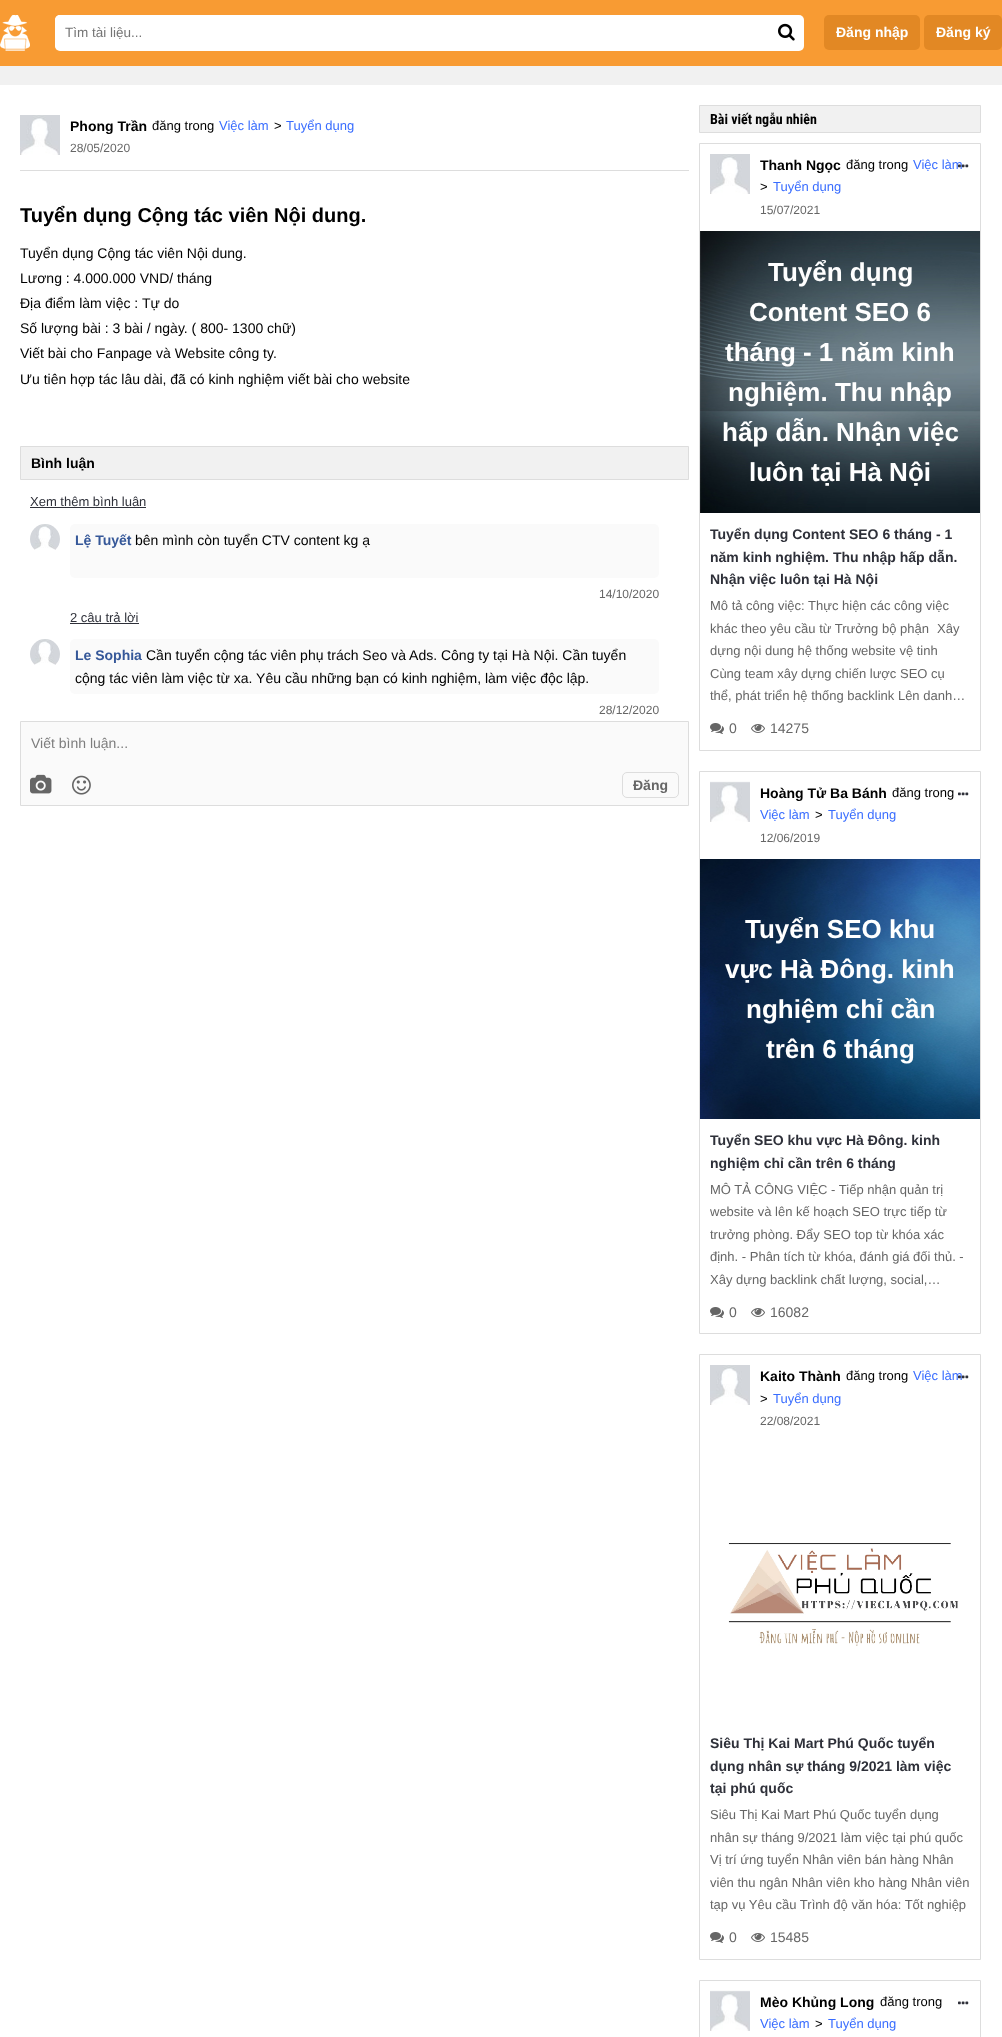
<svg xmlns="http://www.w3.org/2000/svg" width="1002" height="2037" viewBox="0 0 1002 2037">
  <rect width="100%" height="100%" fill="#f1f1f1"/>
  <path d="M0 0h1002v66H0z" fill="#f89b33"/>
  <image x="0" y="15" width="30" height="36" href="img/1.png"/>
  <rect x="55" y="15" width="749" height="36" rx="5" fill="#fff"/>
  <rect x="55" y="15" width="714" height="35" rx="5" fill="#fff"/>
  <image x="778" y="23" width="17" height="18" href="img/2.png"/>
  <rect x="824" y="15" width="96" height="35" rx="5" fill="#e28824"/>
  <rect x="924" y="15" width="78" height="35" rx="5" fill="#e28824"/>
  <path d="M0 85h1002v1952H0z" fill="#fff"/>
  <path d="M20 170h669v1H20z" fill="#ddd"/>
  <image x="20" y="115" width="40" height="40" href="img/3.png"/>
  <path d="M20.5 446.5h668v33H20.5z" fill="#f1f1f1" stroke="#ddd"/>
  <path d="M30 507h116v1H30z" fill="#2e3039"/>
  <image x="30" y="524" width="30" height="26" href="img/4.png"/>
  <rect x="70" y="524" width="589" height="54" rx="5" fill="#fafafa"/>
  <path d="M70 623h69v1H70z" fill="#2e3039"/>
  <image x="30" y="639" width="30" height="26" href="img/4.png"/>
  <rect x="70" y="639" width="589" height="55" rx="5" fill="#fafafa"/>
  <path d="M20.5 721.5h668v84H20.5z" fill="#fafafa" stroke="#ddd"/>
  <image x="30" y="774" width="22" height="20" href="img/5.png"/>
  <image x="72" y="775" width="19" height="20" href="img/6.png"/>
  <rect x="622.5" y="772.5" width="56" height="25" rx="4.5" fill="none" stroke="#ddd"/>
  <path d="M699.5 105.5h281v27H699.5z" fill="#f1f1f1" stroke="#ddd"/>
  <path d="M699.5 143.5h281v607H699.5z" fill="none" stroke="#ddd"/>
  <image x="710" y="154" width="40" height="40" href="img/3.png"/>
  <image x="700" y="231" width="280" height="282" href="img/8.png"/>
  <image x="710" y="723" width="14" height="11" href="img/9.png"/>
  <image x="751" y="724" width="14" height="9" href="img/10.png"/>
  <path d="M699.5 771.5h281v562H699.5z" fill="none" stroke="#ddd"/>
  <image x="710" y="781" width="40" height="41" href="img/11.png"/>
  <image x="958" y="792" width="11" height="4" href="img/12.png"/>
  <image x="700" y="859" width="280" height="260" href="img/13.png"/>
  <image x="710" y="1307" width="14" height="11" href="img/9.png"/>
  <image x="751" y="1308" width="14" height="9" href="img/10.png"/>
  <path d="M699.5 1354.5h281v605H699.5z" fill="none" stroke="#ddd"/>
  <image x="710" y="1365" width="40" height="40" href="img/3.png"/>
  <image x="728" y="1543" width="231" height="103" href="img/14.png"/>
  <image x="710" y="1932" width="14" height="11" href="img/9.png"/>
  <image x="751" y="1933" width="14" height="9" href="img/10.png"/>
  <path d="M699.5 1980.5h281v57H699.5z" fill="none" stroke="#ddd"/>
  <image x="710" y="1990" width="40" height="41" href="img/11.png"/>
  <image x="958" y="2001" width="11" height="4" href="img/12.png"/>
  <text x="65" y="37" font-family="Liberation Sans" font-size="13.5" fill="#757575">Tìm tài liệu...</text>
  <g font-family="Liberation Sans" font-size="14" font-weight="bold" fill="#fff">
    <text x="836" y="37">Đăng nhập</text>
    <text x="936" y="37">Đăng ký</text>
  </g>
  <text x="70" y="131" font-family="Liberation Sans" font-size="14" font-weight="bold" fill="#000">Phong Trần</text>
  <text x="152" y="130" font-family="Liberation Sans" font-size="13" fill="#000">đăng trong</text>
  <text x="219" y="130" font-family="Liberation Sans" font-size="13" fill="#396dff">Việc làm</text>
  <text x="274" y="130" font-family="Liberation Sans" font-size="13" fill="#000">&gt;</text>
  <text x="286" y="130" font-family="Liberation Sans" font-size="13" fill="#396dff">Tuyển dụng</text>
  <text x="70" y="152" font-family="Liberation Sans" font-size="12" fill="#666">28/05/2020</text>
  <text x="20" y="222" font-family="Liberation Sans" font-size="20" font-weight="bold" fill="#000">Tuyển dụng Cộng tác viên Nội dung.</text>
  <g font-family="Liberation Sans" font-size="14" fill="#000">
    <text x="20" y="258">Tuyển dụng Cộng tác viên Nội dung.</text>
    <text x="20" y="283">Lương : 4.000.000 VND/ tháng</text>
    <text x="20" y="308">Địa điểm làm việc : Tự do</text>
    <text x="20" y="333">Số lượng bài : 3 bài / ngày. ( 800- 1300 chữ)</text>
    <text x="20" y="358">Viết bài cho Fanpage và Website công ty.</text>
    <text x="20" y="384">Ưu tiên hợp tác lâu dài, đã có kinh nghiệm viết bài cho website</text>
  </g>
  <text x="31" y="468" font-family="Liberation Sans" font-size="14" font-weight="bold" fill="#000">Bình luận</text>
  <text x="30" y="506" font-family="Liberation Sans" font-size="13" fill="#2e3039">Xem thêm bình luận</text>
  <text x="75" y="545" font-family="Liberation Sans" font-size="14" font-weight="bold" fill="#365899">Lệ Tuyết</text>
  <text x="135" y="545" font-family="Liberation Sans" font-size="14" fill="#000">bên mình còn tuyển CTV content kg ạ</text>
  <text x="599" y="598" font-family="Liberation Sans" font-size="12" fill="#666">14/10/2020</text>
  <text x="70" y="622" font-family="Liberation Sans" font-size="13" fill="#2e3039">2 câu trả lời</text>
  <text x="75" y="660" font-family="Liberation Sans" font-size="14" font-weight="bold" fill="#365899">Le Sophia</text>
  <g font-family="Liberation Sans" font-size="14" fill="#000">
    <text x="146" y="660">Cần tuyển cộng tác viên phụ trách Seo và Ads. Công ty tại Hà Nội. Cần tuyển</text>
    <text x="75" y="683">cộng tác viên làm việc từ xa. Yêu cầu những bạn có kinh nghiệm, làm việc độc lập.</text>
  </g>
  <text x="599" y="714" font-family="Liberation Sans" font-size="12" fill="#666">28/12/2020</text>
  <text x="31" y="748" font-family="Liberation Sans" font-size="14" fill="#7d7d7d">Viết bình luận...</text>
  <text x="633" y="790" font-family="Liberation Sans" font-size="14" font-weight="bold" fill="#666">Đăng</text>
  <text x="710" y="124" font-family="Roboto Condensed" font-size="14" font-weight="bold" fill="#000">Bài viết ngẫu nhiên</text>
  <text x="760" y="170" font-family="Liberation Sans" font-size="14" font-weight="bold" fill="#000">Thanh Ngọc</text>
  <text x="846" y="169" font-family="Liberation Sans" font-size="13" fill="#000">đăng trong</text>
  <text x="913" y="169" font-family="Liberation Sans" font-size="13" fill="#396dff">Việc làm</text>
  <text x="760" y="191" font-family="Liberation Sans" font-size="13" fill="#000">&gt;</text>
  <text x="773" y="191" font-family="Liberation Sans" font-size="13" fill="#396dff">Tuyển dụng</text>
  <text x="760" y="214" font-family="Liberation Sans" font-size="12" fill="#666">15/07/2021</text>
  <image x="958" y="164" width="11" height="4" href="img/7.png"/>
  <g font-family="Liberation Sans" font-size="26" font-weight="bold" fill="#fff">
    <text x="768" y="281">Tuyển dụng</text>
    <text x="749" y="321">Content SEO 6</text>
    <text x="725" y="361">tháng - 1 năm kinh</text>
    <text x="728" y="401">nghiệm. Thu nhập</text>
    <text x="722" y="441">hấp dẫn. Nhận việc</text>
    <text x="749" y="481">luôn tại Hà Nội</text>
  </g>
  <g font-family="Liberation Sans" font-size="14" font-weight="bold" fill="#2e3039">
    <text x="710" y="539">Tuyển dụng Content SEO 6 tháng - 1</text>
    <text x="710" y="562">năm kinh nghiệm. Thu nhập hấp dẫn.</text>
    <text x="710" y="584">Nhận việc luôn tại Hà Nội</text>
  </g>
  <g font-family="Liberation Sans" font-size="13" fill="#666">
    <text x="710" y="610">Mô tả công việc: Thực hiện các công việc</text>
    <text x="710" y="633">khác theo yêu cầu từ Trưởng bộ phận</text>
    <text x="937" y="633">Xây</text>
    <text x="710" y="655">dựng nội dung hệ thống website vệ tinh</text>
    <text x="710" y="678">Cùng team xây dựng chiến lược SEO cụ</text>
    <text x="710" y="700">thể, phát triển hệ thống backlink Lên danh…</text>
  </g>
  <g font-family="Liberation Sans" font-size="14" fill="#666">
    <text x="729" y="733">0</text>
    <text x="770" y="733">14275</text>
  </g>
  <text x="760" y="798" font-family="Liberation Sans" font-size="14" font-weight="bold" fill="#000">Hoàng Tử Ba Bánh</text>
  <text x="892" y="797" font-family="Liberation Sans" font-size="13" fill="#000">đăng trong</text>
  <text x="760" y="819" font-family="Liberation Sans" font-size="13" fill="#396dff">Việc làm</text>
  <text x="815" y="819" font-family="Liberation Sans" font-size="13" fill="#000">&gt;</text>
  <text x="828" y="819" font-family="Liberation Sans" font-size="13" fill="#396dff">Tuyển dụng</text>
  <text x="760" y="842" font-family="Liberation Sans" font-size="12" fill="#666">12/06/2019</text>
  <g font-family="Liberation Sans" font-size="26" font-weight="bold" fill="#fff">
    <text x="745" y="938">Tuyển SEO khu</text>
    <text x="725" y="978">vực Hà Đông. kinh</text>
    <text x="746" y="1018">nghiệm chỉ cần</text>
    <text x="766" y="1058">trên 6 tháng</text>
  </g>
  <g font-family="Liberation Sans" font-size="14" font-weight="bold" fill="#2e3039">
    <text x="710" y="1145">Tuyển SEO khu vực Hà Đông. kinh</text>
    <text x="710" y="1168">nghiệm chỉ cần trên 6 tháng</text>
  </g>
  <g font-family="Liberation Sans" font-size="13" fill="#666">
    <text x="710" y="1194">MÔ TẢ CÔNG VIỆC - Tiếp nhận quản trị</text>
    <text x="710" y="1216">website và lên kế hoạch SEO trực tiếp từ</text>
    <text x="710" y="1239">trưởng phòng. Đẩy SEO top từ khóa xác</text>
    <text x="710" y="1261">định. - Phân tích từ khóa, đánh giá đối thủ. -</text>
    <text x="710" y="1284">Xây dựng backlink chất lượng, social,…</text>
  </g>
  <g font-family="Liberation Sans" font-size="14" fill="#666">
    <text x="729" y="1317">0</text>
    <text x="770" y="1317">16082</text>
  </g>
  <text x="760" y="1381" font-family="Liberation Sans" font-size="14" font-weight="bold" fill="#000">Kaito Thành</text>
  <text x="846" y="1380" font-family="Liberation Sans" font-size="13" fill="#000">đăng trong</text>
  <text x="913" y="1380" font-family="Liberation Sans" font-size="13" fill="#396dff">Việc làm</text>
  <text x="760" y="1403" font-family="Liberation Sans" font-size="13" fill="#000">&gt;</text>
  <text x="773" y="1403" font-family="Liberation Sans" font-size="13" fill="#396dff">Tuyển dụng</text>
  <text x="760" y="1425" font-family="Liberation Sans" font-size="12" fill="#666">22/08/2021</text>
  <image x="958" y="1375" width="11" height="4" href="img/7.png"/>
  <g font-family="Liberation Sans" font-size="14" font-weight="bold" fill="#2e3039">
    <text x="710" y="1748">Siêu Thị Kai Mart Phú Quốc tuyển</text>
    <text x="710" y="1771">dụng nhân sự tháng 9/2021 làm việc</text>
    <text x="710" y="1793">tại phú quốc</text>
  </g>
  <g font-family="Liberation Sans" font-size="13" fill="#666">
    <text x="710" y="1819">Siêu Thị Kai Mart Phú Quốc tuyển dụng</text>
    <text x="710" y="1842">nhân sự tháng 9/2021 làm việc tại phú quốc</text>
    <text x="710" y="1864">Vị trí ứng tuyển Nhân viên bán hàng Nhân</text>
    <text x="710" y="1887">viên thu ngân Nhân viên kho hàng Nhân viên</text>
    <text x="710" y="1909">tạp vụ Yêu cầu Trình độ văn hóa: Tốt nghiệp</text>
  </g>
  <g font-family="Liberation Sans" font-size="14" fill="#666">
    <text x="729" y="1942">0</text>
    <text x="770" y="1942">15485</text>
  </g>
  <text x="760" y="2007" font-family="Liberation Sans" font-size="14" font-weight="bold" fill="#000">Mèo Khủng Long</text>
  <text x="880" y="2006" font-family="Liberation Sans" font-size="13" fill="#000">đăng trong</text>
  <text x="760" y="2028" font-family="Liberation Sans" font-size="13" fill="#396dff">Việc làm</text>
  <text x="815" y="2028" font-family="Liberation Sans" font-size="13" fill="#000">&gt;</text>
  <text x="828" y="2028" font-family="Liberation Sans" font-size="13" fill="#396dff">Tuyển dụng</text>
</svg>
